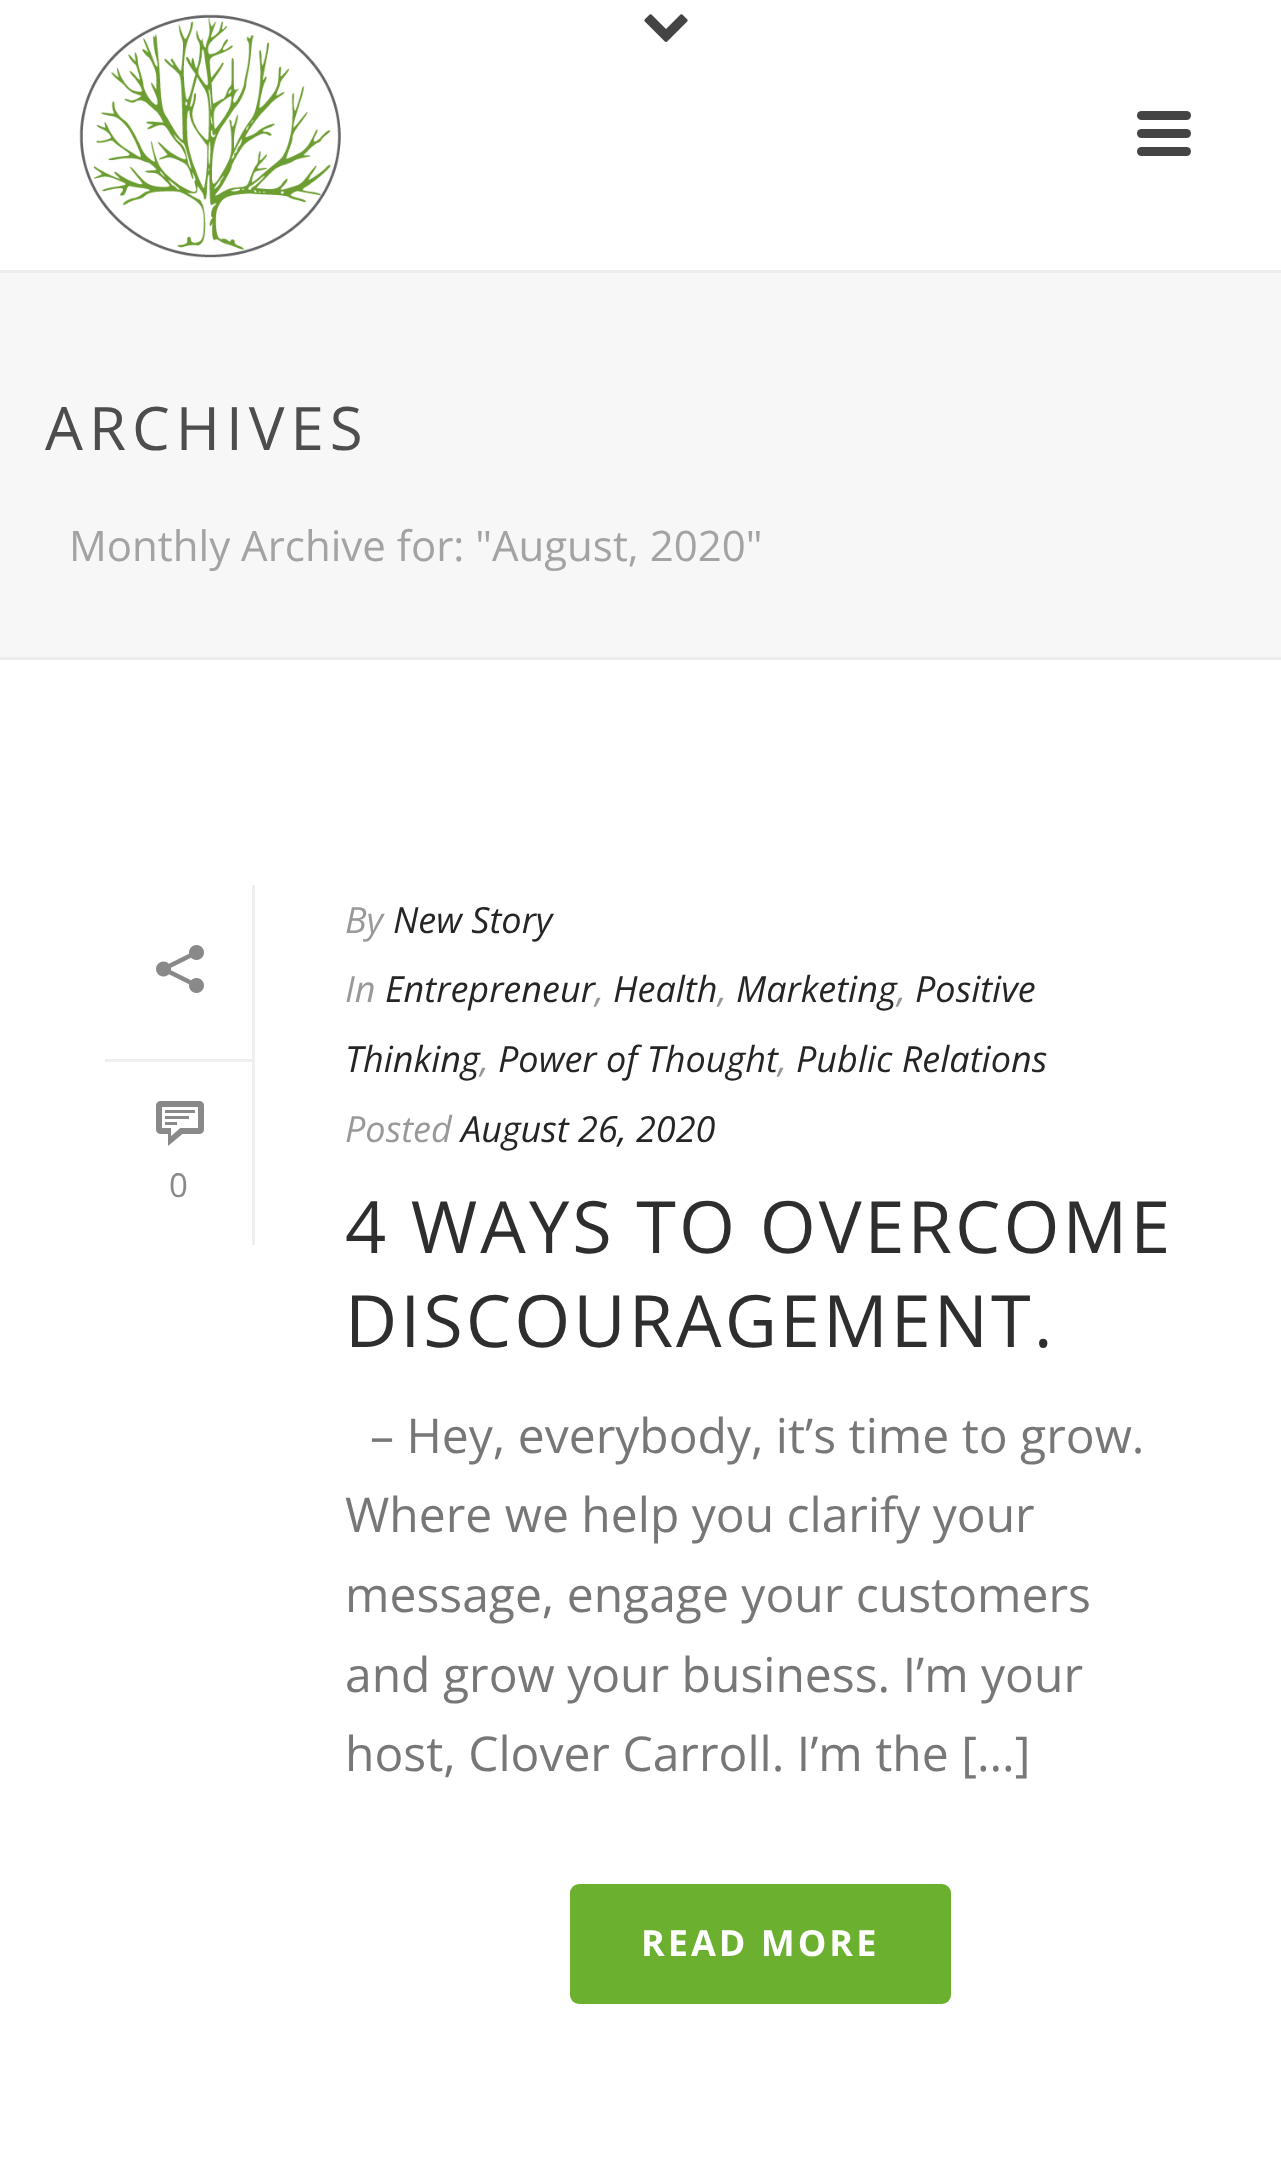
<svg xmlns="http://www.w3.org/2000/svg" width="1281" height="2164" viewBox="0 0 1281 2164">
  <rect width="100%" height="100%" fill="#fff"/>
  <path d="M0 273h1281v384H0z" fill="#f7f7f7"/>
  <path d="M0 657h1281v3H0z" fill="#ededed"/>
  <path d="M0 270h1281v3H0z" fill="#ededed"/>
  <image x="79" y="14" width="262" height="244" href="img/1.png"/>
  <rect x="1137" y="111" width="54" height="9" rx="4.5" fill="#444"/>
  <rect x="1137" y="129" width="54" height="9" rx="4.5" fill="#444"/>
  <rect x="1137" y="147" width="54" height="9" rx="4.5" fill="#444"/>
  <image x="644" y="14" width="44" height="28" href="img/2.png"/>
  <path d="M252 885h3v360H252z" fill="#efefef"/>
  <path d="M105 1059h147v3H105z" fill="#efefef"/>
  <image x="156" y="945" width="48" height="48" href="img/3.png"/>
  <image x="156" y="1101" width="48" height="45" href="img/4.png"/>
  <rect x="570" y="1884" width="381" height="120" rx="9" fill="#6bb02f"/>
  <text x="45" y="450" font-family="Open Sans" font-size="60" letter-spacing="6" fill="#4d4d4d">ARCHIVES</text>
  <text x="69" y="561" font-family="Open Sans" font-size="42" fill="#a3a3a3">Monthly Archive for: "August, 2020"</text>
  <text x="169" y="1197" font-family="Open Sans" font-size="33" fill="#898989">0</text>
  <text x="345" y="933" font-family="Open Sans" font-size="36" font-style="italic" fill="#999">By</text>
  <text x="393" y="933" font-family="Open Sans" font-size="36" font-style="italic" fill="#252525">New Story</text>
  <text x="345" y="1002" font-family="Open Sans" font-size="36" font-style="italic" fill="#999">In</text>
  <text x="385" y="1002" font-family="Open Sans" font-size="36" font-style="italic" fill="#252525">Entrepreneur</text>
  <text x="595" y="1002" font-family="Open Sans" font-size="36" font-style="italic" fill="#999">,</text>
  <text x="613" y="1002" font-family="Open Sans" font-size="36" font-style="italic" fill="#252525">Health</text>
  <text x="718" y="1002" font-family="Open Sans" font-size="36" font-style="italic" fill="#999">,</text>
  <text x="736" y="1002" font-family="Open Sans" font-size="36" font-style="italic" fill="#252525">Marketing</text>
  <text x="897" y="1002" font-family="Open Sans" font-size="36" font-style="italic" fill="#999">,</text>
  <g font-family="Open Sans" font-size="36" font-style="italic" fill="#252525">
    <text x="915" y="1002">Positive</text>
    <text x="345" y="1072">Thinking</text>
  </g>
  <text x="480" y="1072" font-family="Open Sans" font-size="36" font-style="italic" fill="#999">,</text>
  <text x="498" y="1072" font-family="Open Sans" font-size="36" font-style="italic" fill="#252525">Power of Thought</text>
  <text x="778" y="1072" font-family="Open Sans" font-size="36" font-style="italic" fill="#999">,</text>
  <text x="796" y="1072" font-family="Open Sans" font-size="36" font-style="italic" fill="#252525">Public Relations</text>
  <text x="345" y="1142" font-family="Open Sans" font-size="36" font-style="italic" fill="#999">Posted</text>
  <text x="461" y="1142" font-family="Open Sans" font-size="36" font-style="italic" fill="#252525">August 26, 2020</text>
  <g font-family="Open Sans" font-size="72" letter-spacing="3" fill="#2e2e2e">
    <text x="345" y="1253">4 WAYS TO OVERCOME</text>
    <text x="345" y="1347">DISCOURAGEMENT.</text>
  </g>
  <g font-family="Open Sans" font-size="48" fill="#777">
    <text x="370" y="1453">– Hey, everybody, it’s time to grow.</text>
    <text x="345" y="1532">Where we help you clarify your</text>
    <text x="345" y="1612">message, engage your customers</text>
    <text x="345" y="1692">and grow your business. I’m your</text>
    <text x="345" y="1771">host, Clover Carroll. I’m the [...]</text>
  </g>
  <text x="641" y="1956" font-family="Open Sans" font-size="36" font-weight="bold" letter-spacing="3" fill="#fff">READ MORE</text>
</svg>
